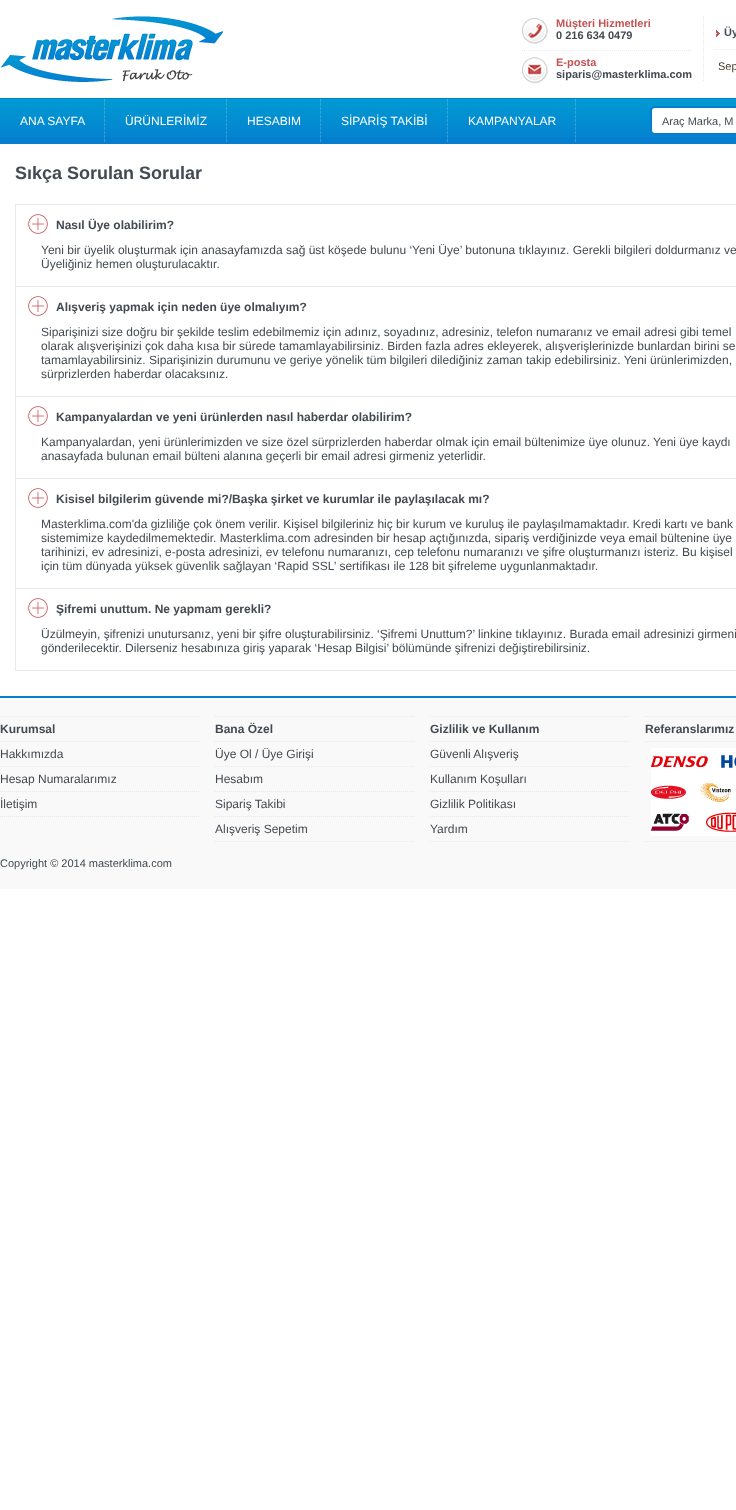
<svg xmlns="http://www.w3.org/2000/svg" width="736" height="1510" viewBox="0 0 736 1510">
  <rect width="100%" height="100%" fill="#fff"/>
  <image x="1" y="16" width="222" height="66" href="img/1.png"/>
  <image x="522" y="18" width="26" height="26" href="img/2.png"/>
  <path d="M522 50.5H692" fill="none" stroke="#e9e9e9" stroke-dasharray="1 1"/>
  <image x="522" y="57" width="26" height="27" href="img/3.png"/>
  <path d="M703.5 16V82" fill="none" stroke="#e9e9e9" stroke-dasharray="1 1"/>
  <path d="M714 49.5H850" fill="none" stroke="#e9e9e9" stroke-dasharray="1 1"/>
  <image x="716" y="30" width="4" height="7" href="img/4.png"/>
  <path d="M0 98h736v46H0z" fill="#057ed0"/>
  <image x="0" y="99" width="736" height="38" href="img/5.png"/>
  <image x="104" y="99" width="1" height="43" href="img/6.png"/>
  <image x="226" y="99" width="1" height="43" href="img/6.png"/>
  <image x="320" y="99" width="1" height="43" href="img/6.png"/>
  <image x="447" y="99" width="1" height="43" href="img/6.png"/>
  <image x="575" y="99" width="1" height="43" href="img/6.png"/>
  <rect x="651" y="107" width="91" height="27" rx="4" fill="#fff" stroke="#057ed0" stroke-width="2"/>
  <path d="M15 670h721v1H15z" fill="#e9e9e9"/>
  <path d="M15 204h1v467H15z" fill="#e9e9e9"/>
  <image x="28" y="214" width="20" height="20" href="img/7.png"/>
  <path d="M16 204h720v1H16z" fill="#e9e9e9"/>
  <image x="28" y="296" width="20" height="20" href="img/7.png"/>
  <path d="M16 286h720v1H16z" fill="#e9e9e9"/>
  <image x="28" y="406" width="20" height="20" href="img/7.png"/>
  <path d="M16 396h720v1H16z" fill="#e9e9e9"/>
  <image x="28" y="488" width="20" height="20" href="img/7.png"/>
  <path d="M16 478h720v1H16z" fill="#e9e9e9"/>
  <image x="28" y="598" width="20" height="20" href="img/7.png"/>
  <path d="M16 588h720v1H16z" fill="#e9e9e9"/>
  <path d="M0 698h736v191H0z" fill="#f9f9f9"/>
  <path d="M0 696h736v2H0z" fill="#057ed0"/>
  <path d="M0 716.5H200" fill="none" stroke="#e9e9e9" stroke-dasharray="1 1"/>
  <path d="M0 741.5H200" fill="none" stroke="#e9e9e9" stroke-dasharray="1 1"/>
  <path d="M0 766.5H200" fill="none" stroke="#e9e9e9" stroke-dasharray="1 1"/>
  <path d="M0 791.5H200" fill="none" stroke="#e9e9e9" stroke-dasharray="1 1"/>
  <path d="M0 816.5H200" fill="none" stroke="#e9e9e9" stroke-dasharray="1 1"/>
  <path d="M215 716.5H415" fill="none" stroke="#e9e9e9" stroke-dasharray="1 1"/>
  <path d="M215 741.5H415" fill="none" stroke="#e9e9e9" stroke-dasharray="1 1"/>
  <path d="M215 766.5H415" fill="none" stroke="#e9e9e9" stroke-dasharray="1 1"/>
  <path d="M215 791.5H415" fill="none" stroke="#e9e9e9" stroke-dasharray="1 1"/>
  <path d="M215 816.5H415" fill="none" stroke="#e9e9e9" stroke-dasharray="1 1"/>
  <path d="M215 841.5H415" fill="none" stroke="#e9e9e9" stroke-dasharray="1 1"/>
  <path d="M430 716.5H630" fill="none" stroke="#e9e9e9" stroke-dasharray="1 1"/>
  <path d="M430 741.5H630" fill="none" stroke="#e9e9e9" stroke-dasharray="1 1"/>
  <path d="M430 766.5H630" fill="none" stroke="#e9e9e9" stroke-dasharray="1 1"/>
  <path d="M430 791.5H630" fill="none" stroke="#e9e9e9" stroke-dasharray="1 1"/>
  <path d="M430 816.5H630" fill="none" stroke="#e9e9e9" stroke-dasharray="1 1"/>
  <path d="M430 841.5H630" fill="none" stroke="#e9e9e9" stroke-dasharray="1 1"/>
  <path d="M645 716.5H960" fill="none" stroke="#e9e9e9" stroke-dasharray="1 1"/>
  <path d="M645 741.5H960" fill="none" stroke="#e9e9e9" stroke-dasharray="1 1"/>
  <path d="M645 841.5H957" fill="none" stroke="#e9e9e9" stroke-dasharray="1 1"/>
  <image x="651" y="748" width="85" height="88" href="img/8.png"/>
  <text x="556" y="27" font-family="Liberation Sans" font-size="11" font-weight="bold" fill="#c55353">Müşteri Hizmetleri</text>
  <text x="556" y="39" font-family="Liberation Sans" font-size="11" font-weight="bold" fill="#424a52">0 216 634 0479</text>
  <text x="556" y="66" font-family="Liberation Sans" font-size="11" font-weight="bold" fill="#c55353">E-posta</text>
  <g font-family="Liberation Sans" font-size="11" font-weight="bold" fill="#424a52">
    <text x="556" y="78">siparis@masterklima.com</text>
    <text x="724" y="36">Üy</text>
  </g>
  <text x="718" y="70" font-family="Liberation Sans" font-size="11" fill="#4a3a30">Sep</text>
  <g font-family="Liberation Sans" font-size="12" fill="#fff">
    <text x="20" y="125">ANA SAYFA</text>
    <text x="125" y="125">ÜRÜNLERİMİZ</text>
    <text x="247" y="125">HESABIM</text>
    <text x="341" y="125">SİPARİŞ TAKİBİ</text>
    <text x="468" y="125">KAMPANYALAR</text>
  </g>
  <text x="662" y="125" font-family="Liberation Sans" font-size="11" fill="#424a52">Araç Marka, M</text>
  <text x="15" y="179" font-family="Liberation Sans" font-size="18" font-weight="bold" fill="#424a52">Sıkça Sorulan Sorular</text>
  <text x="56" y="229" font-family="Liberation Sans" font-size="12" font-weight="bold" fill="#424a52">Nasıl Üye olabilirim?</text>
  <g font-family="Liberation Sans" font-size="12" fill="#424a52">
    <text x="41" y="254">Yeni bir üyelik oluşturmak için anasayfamızda sağ üst köşede bulunu ‘Yeni Üye’ butonuna tıklayınız. Gerekli bilgileri doldurmanız ve</text>
    <text x="41" y="268">Üyeliğiniz hemen oluşturulacaktır.</text>
  </g>
  <text x="56" y="311" font-family="Liberation Sans" font-size="12" font-weight="bold" fill="#424a52">Alışveriş yapmak için neden üye olmalıyım?</text>
  <g font-family="Liberation Sans" font-size="12" fill="#424a52">
    <text x="41" y="336">Siparişinizi size doğru bir şekilde teslim edebilmemiz için adınız, soyadınız, adresiniz, telefon numaranız ve email adresi gibi temel</text>
    <text x="41" y="350">olarak alışverişinizi çok daha kısa bir sürede tamamlayabilirsiniz. Birden fazla adres ekleyerek, alışverişlerinizde bunlardan birini se</text>
    <text x="41" y="364">tamamlayabilirsiniz. Siparişinizin durumunu ve geriye yönelik tüm bilgileri dilediğiniz zaman takip edebilirsiniz. Yeni ürünlerimizden,</text>
    <text x="41" y="378">sürprizlerden haberdar olacaksınız.</text>
  </g>
  <text x="56" y="421" font-family="Liberation Sans" font-size="12" font-weight="bold" fill="#424a52">Kampanyalardan ve yeni ürünlerden nasıl haberdar olabilirim?</text>
  <g font-family="Liberation Sans" font-size="12" fill="#424a52">
    <text x="41" y="446">Kampanyalardan, yeni ürünlerimizden ve size özel sürprizlerden haberdar olmak için email bültenimize üye olunuz. Yeni üye kaydı</text>
    <text x="41" y="460">anasayfada bulunan email bülteni alanına geçerli bir email adresi girmeniz yeterlidir.</text>
  </g>
  <text x="56" y="503" font-family="Liberation Sans" font-size="12" font-weight="bold" fill="#424a52">Kisisel bilgilerim güvende mi?/Başka şirket ve kurumlar ile paylaşılacak mı?</text>
  <g font-family="Liberation Sans" font-size="12" fill="#424a52">
    <text x="41" y="528">Masterklima.com'da gizliliğe çok önem verilir. Kişisel bilgileriniz hiç bir kurum ve kuruluş ile paylaşılmamaktadır. Kredi kartı ve bank</text>
    <text x="41" y="542">sistemimize kaydedilmemektedir. Masterklima.com adresinden bir hesap açtığınızda, sipariş verdiğinizde veya email bültenine üye</text>
    <text x="41" y="556">tarihinizi, ev adresinizi, e-posta adresinizi, ev telefonu numaranızı, cep telefonu numaranızı ve şifre oluşturmanızı isteriz. Bu kişisel</text>
    <text x="41" y="570">için tüm dünyada yüksek güvenlik sağlayan ‘Rapid SSL’ sertifikası ile 128 bit şifreleme uygunlanmaktadır.</text>
  </g>
  <text x="56" y="613" font-family="Liberation Sans" font-size="12" font-weight="bold" fill="#424a52">Şifremi unuttum. Ne yapmam gerekli?</text>
  <g font-family="Liberation Sans" font-size="12" fill="#424a52">
    <text x="41" y="638">Üzülmeyin, şifrenizi unutursanız, yeni bir şifre oluşturabilirsiniz. ‘Şifremi Unuttum?’ linkine tıklayınız. Burada email adresinizi girmeni</text>
    <text x="41" y="652">gönderilecektir. Dilerseniz hesabınıza giriş yaparak ‘Hesap Bilgisi’ bölümünde şifrenizi değiştirebilirsiniz.</text>
  </g>
  <text x="0" y="733" font-family="Liberation Sans" font-size="12" font-weight="bold" fill="#424a52">Kurumsal</text>
  <g font-family="Liberation Sans" font-size="12" fill="#424a52">
    <text x="0" y="758">Hakkımızda</text>
    <text x="0" y="783">Hesap Numaralarımız</text>
    <text x="0" y="808">İletişim</text>
  </g>
  <text x="215" y="733" font-family="Liberation Sans" font-size="12" font-weight="bold" fill="#424a52">Bana Özel</text>
  <g font-family="Liberation Sans" font-size="12" fill="#424a52">
    <text x="215" y="758">Üye Ol / Üye Girişi</text>
    <text x="215" y="783">Hesabım</text>
    <text x="215" y="808">Sipariş Takibi</text>
    <text x="215" y="833">Alışveriş Sepetim</text>
  </g>
  <text x="430" y="733" font-family="Liberation Sans" font-size="12" font-weight="bold" fill="#424a52">Gizlilik ve Kullanım</text>
  <g font-family="Liberation Sans" font-size="12" fill="#424a52">
    <text x="430" y="758">Güvenli Alışveriş</text>
    <text x="430" y="783">Kullanım Koşulları</text>
    <text x="430" y="808">Gizlilik Politikası</text>
    <text x="430" y="833">Yardım</text>
  </g>
  <text x="645" y="733" font-family="Liberation Sans" font-size="12" font-weight="bold" fill="#424a52">Referanslarımız</text>
  <text x="0" y="867" font-family="Liberation Sans" font-size="11" fill="#424a52">Copyright © 2014 masterklima.com</text>
</svg>
